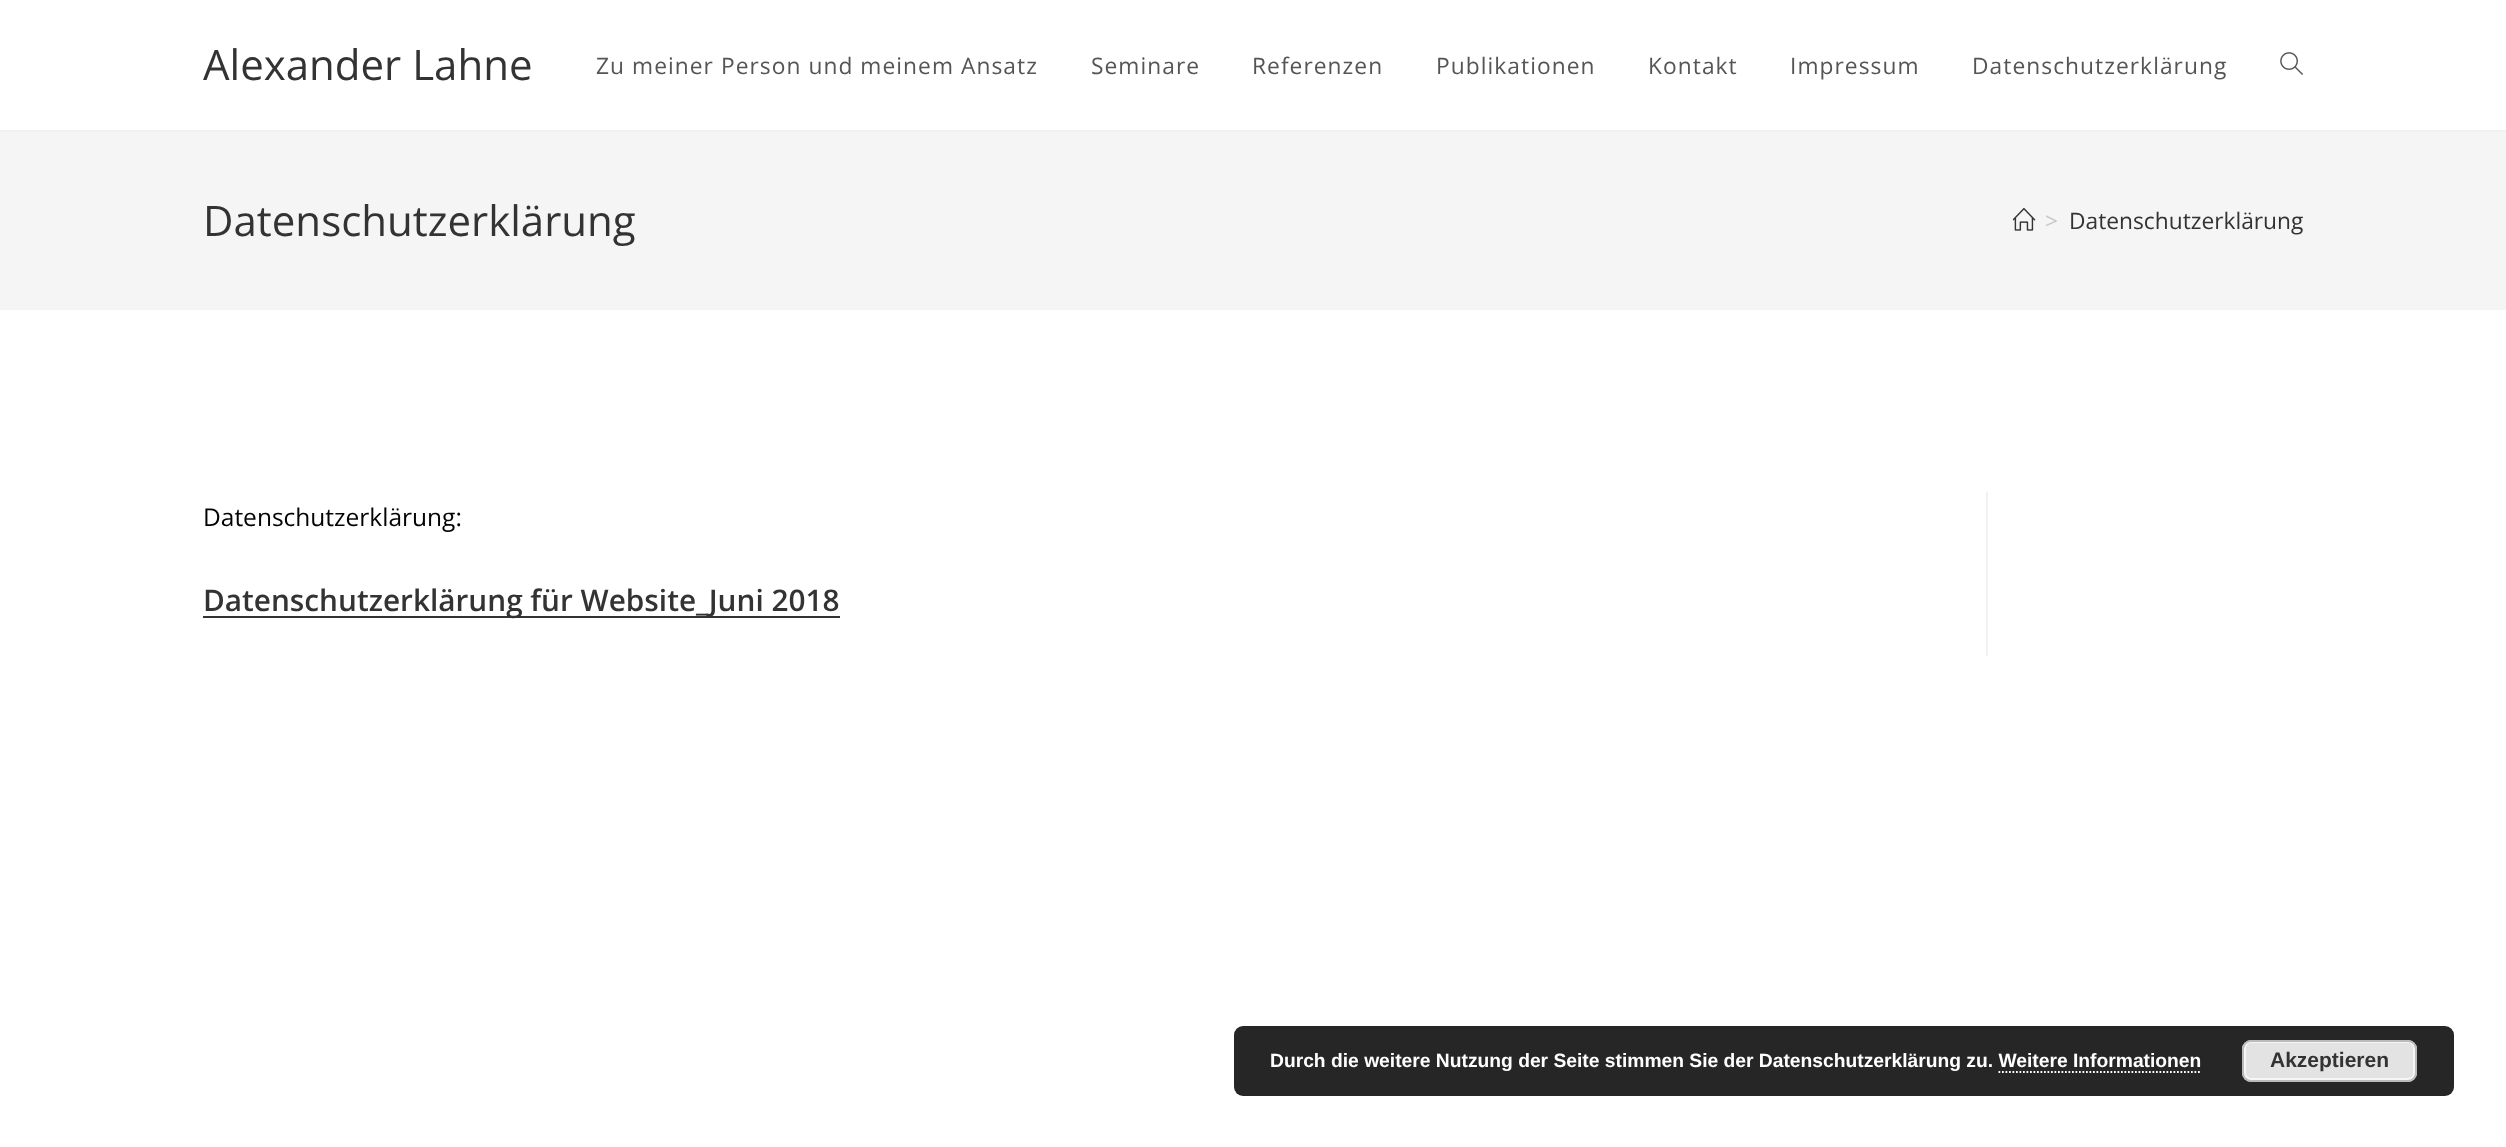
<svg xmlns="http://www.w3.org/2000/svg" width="2506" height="1147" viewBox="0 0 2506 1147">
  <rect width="100%" height="100%" fill="#fff"/>
  <path d="M0 130h2506v2H0z" fill="#f1f1f1"/>
  <image x="2280" y="52" width="23" height="23" href="img/1.png"/>
  <path d="M0 132h2506v178H0z" fill="#f5f5f5"/>
  <image x="2013" y="208" width="23" height="23" href="img/2.png"/>
  <path d="M1986 492h2v164H1986z" fill="#f1f1f1"/>
  <path d="M203 616h637v2H203z" fill="#333"/>
  <rect x="1234" y="1026" width="1220" height="70" rx="9" fill="#262626"/>
  <rect x="2242" y="1040" width="175" height="42" rx="9" fill="#e3e3e3"/>
  <rect x="2245" y="1042" width="169" height="37" rx="6" fill="none" stroke="#f6f6f6" stroke-width="2"/>
  <rect x="2243" y="1041" width="173" height="40" rx="8" fill="none" stroke="#bbb" stroke-width="2"/>
  <path d="M1998.5 1072H2201.5" fill="none" stroke="#fff" stroke-width="1.8" stroke-dasharray="1.75 1.75"/>
  <text x="203" y="80" font-family="Open Sans" font-size="42" fill="#333">Alexander Lahne</text>
  <g font-family="Open Sans" font-size="22.75" letter-spacing="1.05" fill="#555">
    <text x="596" y="74">Zu meiner Person und meinem Ansatz</text>
    <text x="1091" y="74">Seminare</text>
    <text x="1252" y="74">Referenzen</text>
    <text x="1436" y="74">Publikationen</text>
    <text x="1648" y="74">Kontakt</text>
    <text x="1790" y="74">Impressum</text>
    <text x="1972" y="74">Datenschutzerklärung</text>
  </g>
  <text x="203" y="236" font-family="Open Sans" font-size="42" fill="#333">Datenschutzerklärung</text>
  <text x="2045" y="229" font-family="Open Sans" font-size="22.75" fill="#c6c6c6">&gt;</text>
  <text x="2069" y="229" font-family="Open Sans" font-size="22.75" fill="#333">Datenschutzerklärung</text>
  <text x="203" y="526" font-family="Open Sans" font-size="24.5" fill="#020202">Datenschutzerklärung:</text>
  <text x="203" y="611" font-family="Open Sans" font-size="29.75" font-weight="600" fill="#333">Datenschutzerklärung für Website_Juni 2018</text>
  <text x="1270" y="1067" font-family="Liberation Sans" font-size="19.25" font-weight="bold" fill="#fff">Durch die weitere Nutzung der Seite stimmen Sie der Datenschutzerklärung zu. Weitere Informationen</text>
  <text x="2270" y="1067" font-family="Liberation Sans" font-size="21" font-weight="bold" fill="#333">Akzeptieren</text>
</svg>
